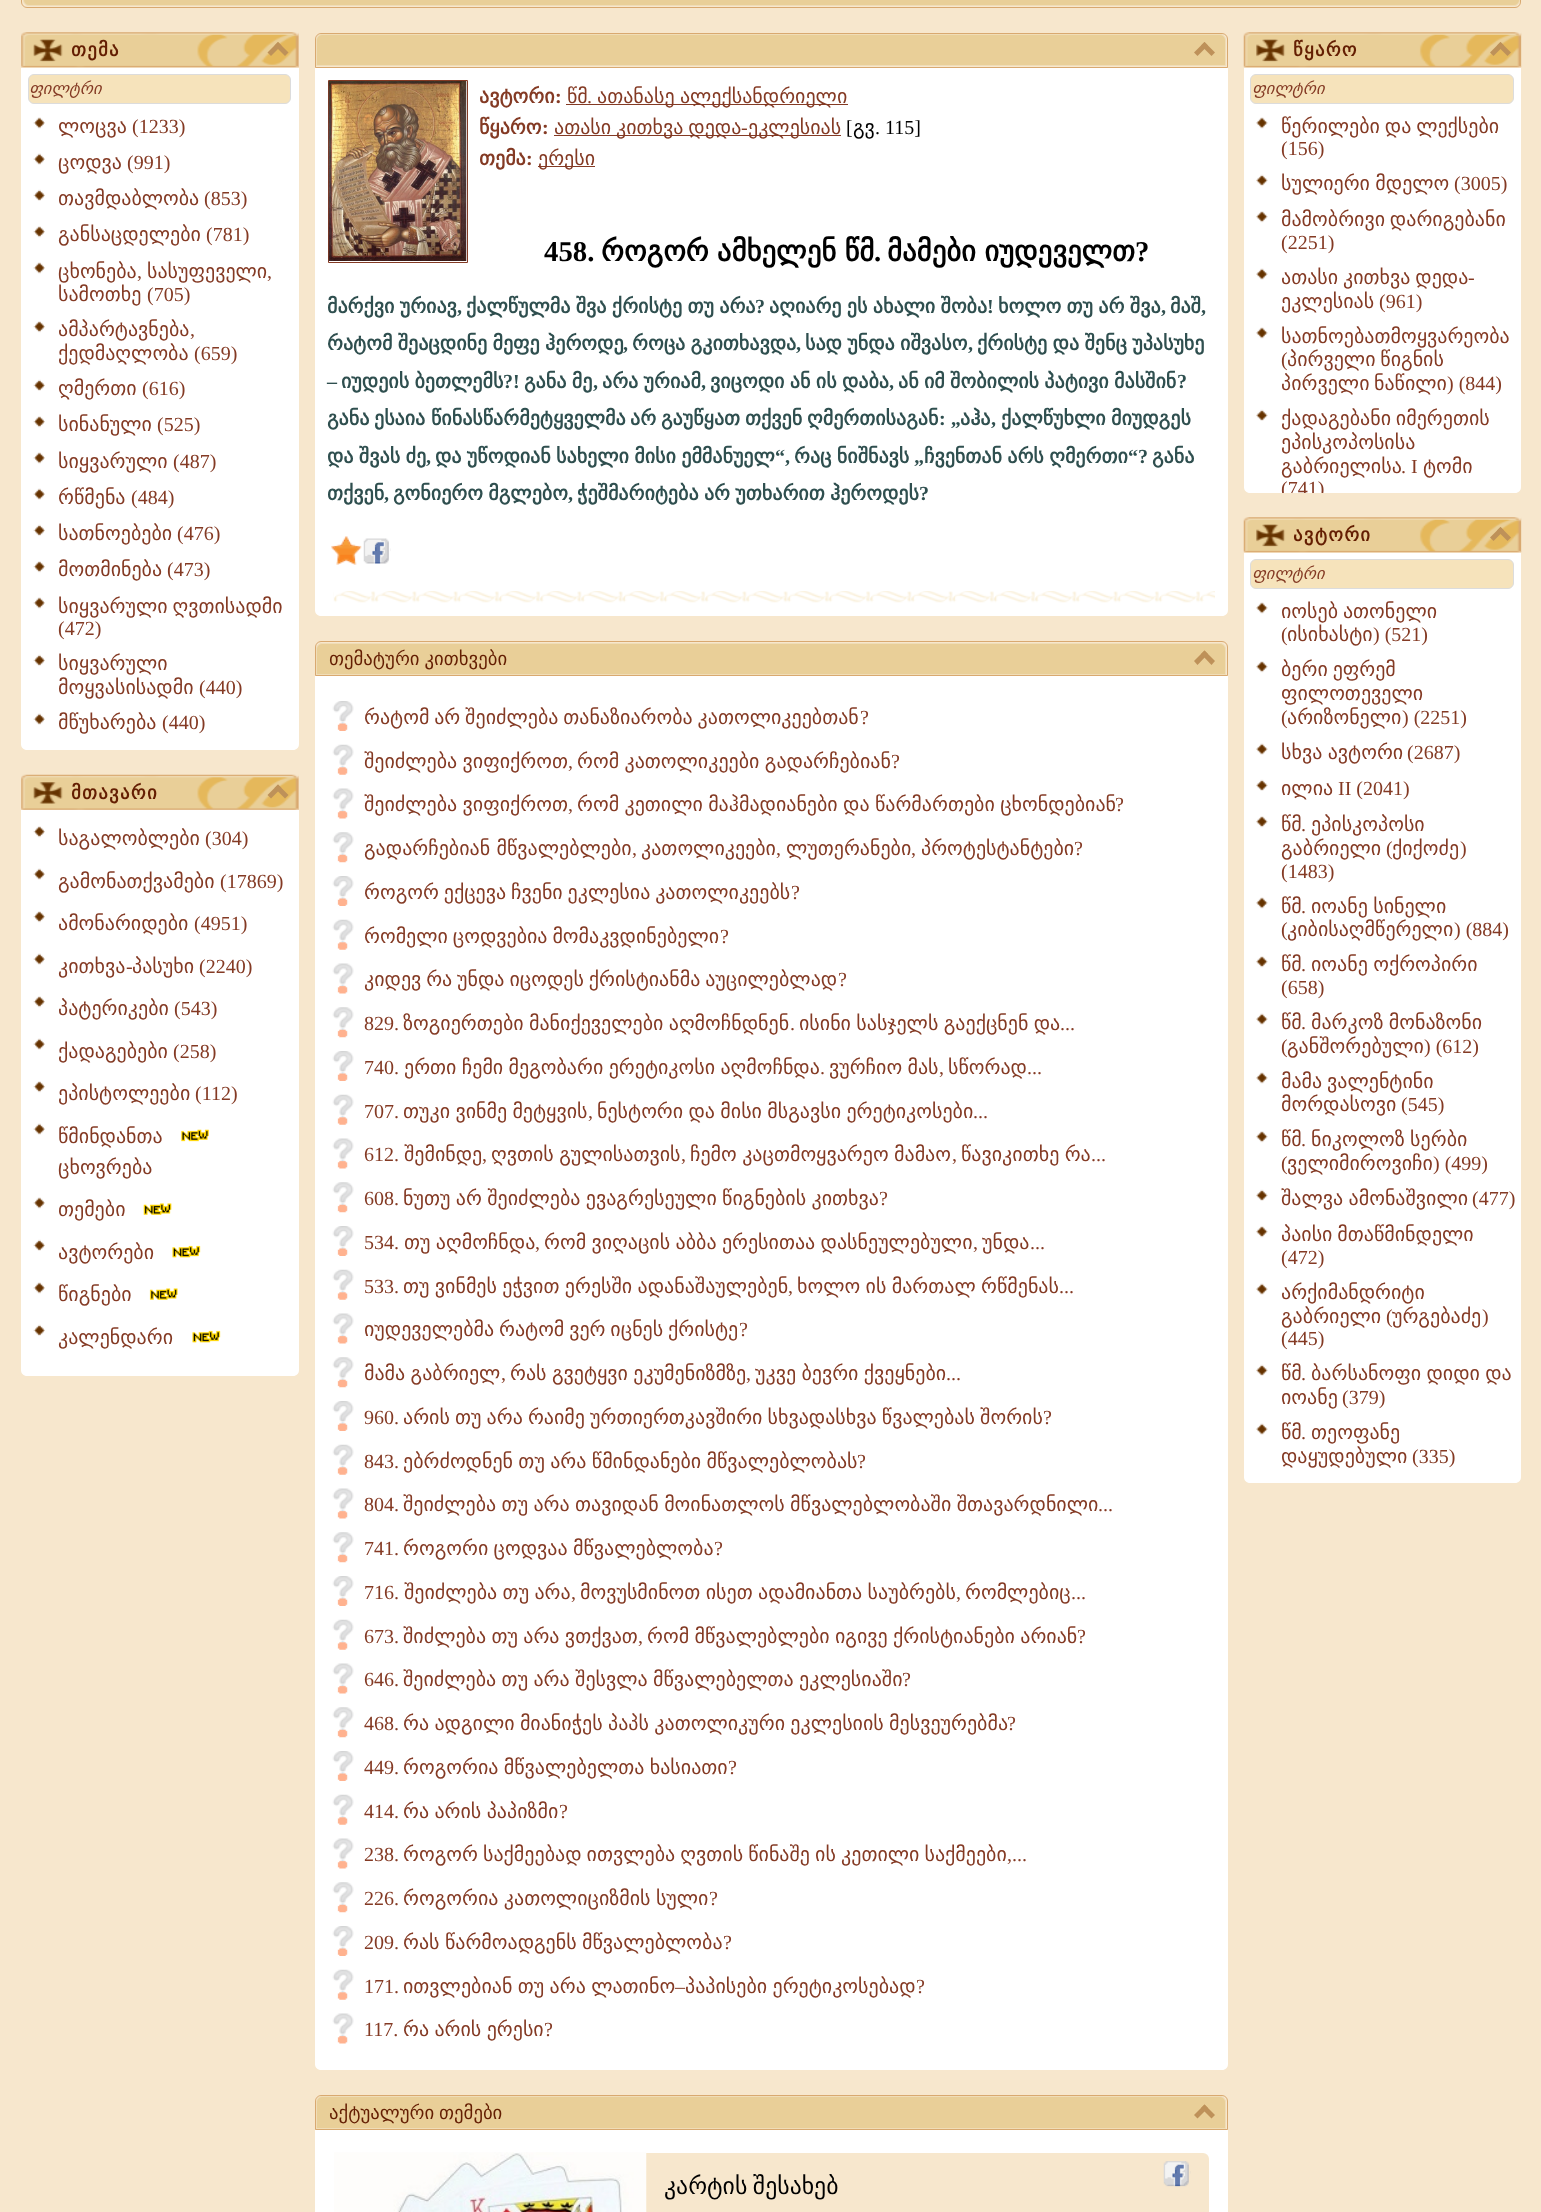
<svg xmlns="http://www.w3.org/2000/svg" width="1541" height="2212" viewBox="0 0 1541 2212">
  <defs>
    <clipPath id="clip1"><path d="M1244 110h277v383H1244z"/></clipPath>
  </defs>
  <rect width="100%" height="100%" fill="#f7e7cd"/>
  <rect x="21.5" y="-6.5" width="1499" height="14" rx="5.5" fill="none" stroke="#d9a970"/>
  <rect x="23.5" y="-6.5" width="1496" height="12" rx="5.5" fill="#e9cf98" stroke="#f0ddb7"/>
  <image x="21" y="32" width="278" height="36" href="img/1.png"/>
  <path d="M271 56L267.5 52.5L278 42L281.5 45.5Z" fill="#be9159"/>
  <path d="M285 56L274.5 45.5L278 42L288.5 52.5Z" fill="#be9159"/>
  <path d="M21 68H299V744C299 747.5 296.5 750 293 750H27C23.5 750 21 747.5 21 744Z" fill="#fff"/>
  <rect x="28.5" y="74.5" width="262" height="29" rx="5.5" fill="#f6e3bb" stroke="#dcdcdc"/>
  <image x="33" y="117" width="12" height="12" href="img/2.png"/>
  <image x="33" y="153" width="12" height="12" href="img/3.png"/>
  <image x="33" y="189" width="12" height="12" href="img/4.png"/>
  <image x="33" y="226" width="12" height="12" href="img/5.png"/>
  <image x="33" y="262" width="12" height="12" href="img/2.png"/>
  <image x="33" y="321" width="12" height="12" href="img/5.png"/>
  <image x="33" y="379" width="12" height="12" href="img/4.png"/>
  <image x="33" y="416" width="12" height="12" href="img/5.png"/>
  <image x="33" y="452" width="12" height="12" href="img/2.png"/>
  <image x="33" y="488" width="12" height="12" href="img/3.png"/>
  <image x="33" y="524" width="12" height="12" href="img/4.png"/>
  <image x="33" y="561" width="12" height="12" href="img/5.png"/>
  <image x="33" y="597" width="12" height="12" href="img/2.png"/>
  <image x="33" y="654" width="12" height="12" href="img/4.png"/>
  <image x="33" y="713" width="12" height="12" href="img/6.png"/>
  <image x="21" y="774" width="278" height="36" href="img/7.png"/>
  <path d="M271 798.5L267.5 795L278 784.5L281.5 788Z" fill="#be9159"/>
  <path d="M285 798.5L274.5 788L278 784.5L288.5 795Z" fill="#be9159"/>
  <path d="M21 810H299V1370C299 1373.5 296.5 1376 293 1376H27C23.5 1376 21 1373.5 21 1370Z" fill="#fff"/>
  <image x="33" y="826" width="12" height="12" href="img/5.png"/>
  <image x="33" y="868" width="12" height="12" href="img/3.png"/>
  <image x="33" y="911" width="12" height="12" href="img/5.png"/>
  <image x="33" y="953" width="12" height="12" href="img/3.png"/>
  <image x="33" y="996" width="12" height="12" href="img/5.png"/>
  <image x="33" y="1038" width="12" height="12" href="img/3.png"/>
  <image x="33" y="1081" width="12" height="12" href="img/5.png"/>
  <image x="33" y="1123" width="12" height="12" href="img/3.png"/>
  <image x="181" y="1129" width="28" height="13" href="img/8.png"/>
  <image x="33" y="1197" width="12" height="12" href="img/2.png"/>
  <image x="143" y="1203" width="29" height="12" href="img/9.png"/>
  <image x="33" y="1239" width="12" height="12" href="img/4.png"/>
  <image x="172" y="1245" width="29" height="13" href="img/10.png"/>
  <image x="33" y="1282" width="12" height="12" href="img/2.png"/>
  <image x="149" y="1288" width="29" height="12" href="img/11.png"/>
  <image x="33" y="1324" width="12" height="12" href="img/4.png"/>
  <image x="192" y="1330" width="29" height="13" href="img/10.png"/>
  <path d="M321 33.5H1222C1225 33.5 1227.5 36 1227.5 39V67.5H315.5V39C315.5 36 318 33.5 321 33.5Z" fill="none" stroke="#d9a970"/>
  <path d="M322 34.5H1220C1223 34.5 1225.5 37 1225.5 40V65.5H316.5V40C316.5 37 319 34.5 322 34.5Z" fill="#e9cf98" stroke="#f0ddb7"/>
  <path d="M1197.5 56L1194 52.5L1204.5 42L1208 45.5Z" fill="#be9159"/>
  <path d="M1211.5 56L1201 45.5L1204.5 42L1215 52.5Z" fill="#be9159"/>
  <path d="M315 68H1228V610C1228 613.5 1225.5 616 1222 616H321C317.5 616 315 613.5 315 610Z" fill="#fff"/>
  <path d="M328.5 80.5h139v182H328.5z" fill="none" stroke="#843a24"/>
  <image x="328" y="81" width="139" height="180" href="img/12.png"/>
  <path d="M566 104h282v1H566z" fill="#843a24"/>
  <path d="M554 135h287v1H554z" fill="#843a24"/>
  <path d="M538 166h57v1H538z" fill="#843a24"/>
  <image x="331" y="536" width="31" height="29" href="img/13.png"/>
  <image x="363" y="538" width="28" height="26" href="img/14.png"/>
  <image x="333" y="591" width="882" height="12" href="img/15.png"/>
  <path d="M321 641.5H1222C1225 641.5 1227.5 644 1227.5 647V675.5H315.5V647C315.5 644 318 641.5 321 641.5Z" fill="none" stroke="#d9a970"/>
  <path d="M322 643.5H1220C1223 643.5 1225.5 646 1225.5 649V674.5H316.5V649C316.5 646 319 643.5 322 643.5Z" fill="#e9cf98" stroke="#f0ddb7"/>
  <path d="M1197.5 665L1194 661L1204.5 650.5L1208 654Z" fill="#be9159"/>
  <path d="M1211.5 665L1201 654L1204.5 650.5L1215 661Z" fill="#be9159"/>
  <path d="M315 676H1228V2064C1228 2067.5 1225.5 2070 1222 2070H321C317.5 2070 315 2067.5 315 2064Z" fill="#fff"/>
  <image x="332" y="701" width="22" height="30" href="img/16.png"/>
  <image x="332" y="744" width="22" height="31" href="img/17.png"/>
  <image x="332" y="788" width="22" height="31" href="img/18.png"/>
  <image x="332" y="832" width="22" height="31" href="img/19.png"/>
  <image x="332" y="876" width="22" height="30" href="img/16.png"/>
  <image x="332" y="919" width="22" height="31" href="img/17.png"/>
  <image x="332" y="963" width="22" height="31" href="img/18.png"/>
  <image x="332" y="1007" width="22" height="31" href="img/19.png"/>
  <image x="332" y="1051" width="22" height="30" href="img/16.png"/>
  <image x="332" y="1094" width="22" height="31" href="img/17.png"/>
  <image x="332" y="1138" width="22" height="31" href="img/18.png"/>
  <image x="332" y="1182" width="22" height="31" href="img/19.png"/>
  <image x="332" y="1226" width="22" height="30" href="img/16.png"/>
  <image x="332" y="1269" width="22" height="31" href="img/17.png"/>
  <image x="332" y="1313" width="22" height="31" href="img/18.png"/>
  <image x="332" y="1357" width="22" height="31" href="img/19.png"/>
  <image x="332" y="1401" width="22" height="30" href="img/16.png"/>
  <image x="332" y="1444" width="22" height="31" href="img/17.png"/>
  <image x="332" y="1488" width="22" height="31" href="img/18.png"/>
  <image x="332" y="1532" width="22" height="31" href="img/20.png"/>
  <image x="332" y="1576" width="22" height="30" href="img/16.png"/>
  <image x="332" y="1619" width="22" height="31" href="img/17.png"/>
  <image x="332" y="1663" width="22" height="31" href="img/18.png"/>
  <image x="332" y="1707" width="22" height="31" href="img/19.png"/>
  <image x="332" y="1751" width="22" height="30" href="img/16.png"/>
  <image x="332" y="1794" width="22" height="31" href="img/17.png"/>
  <image x="332" y="1838" width="22" height="31" href="img/18.png"/>
  <image x="332" y="1882" width="22" height="31" href="img/19.png"/>
  <image x="332" y="1926" width="22" height="30" href="img/16.png"/>
  <image x="332" y="1969" width="22" height="31" href="img/17.png"/>
  <image x="332" y="2013" width="22" height="31" href="img/18.png"/>
  <path d="M321 2095.5H1222C1225 2095.5 1227.5 2098 1227.5 2101V2129.5H315.5V2101C315.5 2098 318 2095.5 321 2095.5Z" fill="none" stroke="#d9a970"/>
  <path d="M322 2096.5H1220C1223 2096.5 1225.5 2099 1225.5 2102V2128.5H316.5V2102C316.5 2099 319 2096.5 322 2096.5Z" fill="#e9cf98" stroke="#f0ddb7"/>
  <path d="M1197.5 2118.5L1194 2115L1204.5 2104.5L1208 2108Z" fill="#be9159"/>
  <path d="M1211.5 2118.5L1201 2108L1204.5 2104.5L1215 2115Z" fill="#be9159"/>
  <path d="M315 2130h913v82H315z" fill="#fff"/>
  <rect x="334" y="2153" width="875" height="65" rx="6" fill="#f7e7cd"/>
  <image x="334" y="2152" width="313" height="60" href="img/21.png"/>
  <image x="1163" y="2161" width="28" height="26" href="img/22.png"/>
  <image x="1243" y="32" width="279" height="36" href="img/23.png"/>
  <path d="M1493.5 56L1490 52.5L1500.5 42L1504 45.5Z" fill="#be9159"/>
  <path d="M1507.5 56L1497 45.5L1500.5 42L1511 52.5Z" fill="#be9159"/>
  <path d="M1244 68H1521V487C1521 490.5 1518.5 493 1515 493H1250C1246.5 493 1244 490.5 1244 487Z" fill="#fff"/>
  <rect x="1250.5" y="74.5" width="263" height="29" rx="5.5" fill="#f6e3bb" stroke="#dcdcdc"/>
  <image x="1256" y="117" width="12" height="12" href="img/24.png"/>
  <image x="1256" y="174" width="12" height="12" href="img/25.png"/>
  <image x="1256" y="211" width="12" height="12" href="img/26.png"/>
  <image x="1256" y="268" width="12" height="12" href="img/27.png"/>
  <image x="1256" y="327" width="12" height="12" href="img/24.png"/>
  <image x="1256" y="409" width="12" height="12" href="img/25.png"/>
  <image x="1243" y="517" width="279" height="36" href="img/28.png"/>
  <path d="M1493.5 541L1490 537.5L1500.5 527L1504 530.5Z" fill="#be9159"/>
  <path d="M1507.5 541L1497 530.5L1500.5 527L1511 537.5Z" fill="#be9159"/>
  <path d="M1244 553H1521V1477C1521 1480.5 1518.5 1483 1515 1483H1250C1246.5 1483 1244 1480.5 1244 1477Z" fill="#fff"/>
  <rect x="1250.5" y="559.5" width="263" height="29" rx="5.5" fill="#f6e3bb" stroke="#dcdcdc"/>
  <image x="1256" y="602" width="12" height="12" href="img/24.png"/>
  <image x="1256" y="661" width="12" height="12" href="img/26.png"/>
  <image x="1256" y="743" width="12" height="12" href="img/27.png"/>
  <image x="1256" y="779" width="12" height="12" href="img/25.png"/>
  <image x="1256" y="816" width="12" height="12" href="img/26.png"/>
  <image x="1256" y="897" width="12" height="12" href="img/24.png"/>
  <image x="1256" y="956" width="12" height="12" href="img/26.png"/>
  <image x="1256" y="1013" width="12" height="12" href="img/27.png"/>
  <image x="1256" y="1072" width="12" height="12" href="img/24.png"/>
  <image x="1256" y="1131" width="12" height="12" href="img/26.png"/>
  <image x="1256" y="1189" width="12" height="12" href="img/25.png"/>
  <image x="1256" y="1226" width="12" height="12" href="img/26.png"/>
  <image x="1256" y="1283" width="12" height="12" href="img/27.png"/>
  <image x="1256" y="1364" width="12" height="12" href="img/25.png"/>
  <image x="1256" y="1423" width="12" height="12" href="img/27.png"/>
  <text x="71" y="56" font-family="DejaVu Sans" font-size="18.75" font-weight="bold" letter-spacing="1.25" fill="#641e02">თემა</text>
  <text x="29" y="94" font-family="DejaVu Sans" font-size="16.5" font-style="italic" fill="#843a24">ფილტრი</text>
  <text x="58" y="133" font-family="DejaVu Sans" font-size="20" fill="#843a24">ლოცვა</text>
  <text x="132" y="133" font-family="Liberation Serif" font-size="20" fill="#843a24">(1233)</text>
  <text x="58" y="169" font-family="DejaVu Sans" font-size="20" fill="#843a24">ცოდვა</text>
  <text x="127" y="169" font-family="Liberation Serif" font-size="20" fill="#843a24">(991)</text>
  <text x="58" y="205" font-family="DejaVu Sans" font-size="20" fill="#843a24">თავმდაბლობა</text>
  <text x="204" y="205" font-family="Liberation Serif" font-size="20" fill="#843a24">(853)</text>
  <text x="58" y="241" font-family="DejaVu Sans" font-size="20" fill="#843a24">განსაცდელები</text>
  <text x="206" y="241" font-family="Liberation Serif" font-size="20" fill="#843a24">(781)</text>
  <text x="58" y="278" font-family="DejaVu Sans" font-size="20" fill="#843a24">ცხონება</text>
  <text x="137" y="278" font-family="Liberation Serif" font-size="20" fill="#843a24">,</text>
  <text x="147" y="278" font-family="DejaVu Sans" font-size="20" fill="#843a24">სასუფეველი</text>
  <text x="267" y="278" font-family="Liberation Serif" font-size="20" fill="#843a24">,</text>
  <text x="58" y="301" font-family="DejaVu Sans" font-size="20" fill="#843a24">სამოთხე</text>
  <text x="147" y="301" font-family="Liberation Serif" font-size="20" fill="#843a24">(705)</text>
  <text x="58" y="336" font-family="DejaVu Sans" font-size="20" fill="#843a24">ამპარტავნება</text>
  <text x="190" y="336" font-family="Liberation Serif" font-size="20" fill="#843a24">,</text>
  <text x="58" y="360" font-family="DejaVu Sans" font-size="20" fill="#843a24">ქედმაღლობა</text>
  <text x="194" y="360" font-family="Liberation Serif" font-size="20" fill="#843a24">(659)</text>
  <text x="58" y="395" font-family="DejaVu Sans" font-size="20" fill="#843a24">ღმერთი</text>
  <text x="142" y="395" font-family="Liberation Serif" font-size="20" fill="#843a24">(616)</text>
  <text x="58" y="431" font-family="DejaVu Sans" font-size="20" fill="#843a24">სინანული</text>
  <text x="157" y="431" font-family="Liberation Serif" font-size="20" fill="#843a24">(525)</text>
  <text x="58" y="468" font-family="DejaVu Sans" font-size="20" fill="#843a24">სიყვარული</text>
  <text x="173" y="468" font-family="Liberation Serif" font-size="20" fill="#843a24">(487)</text>
  <text x="58" y="504" font-family="DejaVu Sans" font-size="20" fill="#843a24">რწმენა</text>
  <text x="131" y="504" font-family="Liberation Serif" font-size="20" fill="#843a24">(484)</text>
  <text x="58" y="540" font-family="DejaVu Sans" font-size="20" fill="#843a24">სათნოებები</text>
  <text x="177" y="540" font-family="Liberation Serif" font-size="20" fill="#843a24">(476)</text>
  <text x="58" y="576" font-family="DejaVu Sans" font-size="20" fill="#843a24">მოთმინება</text>
  <text x="167" y="576" font-family="Liberation Serif" font-size="20" fill="#843a24">(473)</text>
  <text x="58" y="613" word-spacing="-1.5" font-family="DejaVu Sans" font-size="20" fill="#843a24">სიყვარული ღვთისადმი</text>
  <text x="58" y="635" font-family="Liberation Serif" font-size="20" fill="#843a24">(472)</text>
  <g font-family="DejaVu Sans" font-size="20" fill="#843a24">
    <text x="58" y="670">სიყვარული</text>
    <text x="58" y="694">მოყვასისადმი</text>
  </g>
  <text x="199" y="694" font-family="Liberation Serif" font-size="20" fill="#843a24">(440)</text>
  <text x="58" y="729" font-family="DejaVu Sans" font-size="20" fill="#843a24">მწუხარება</text>
  <text x="162" y="729" font-family="Liberation Serif" font-size="20" fill="#843a24">(440)</text>
  <text x="71" y="799" font-family="DejaVu Sans" font-size="18.75" font-weight="bold" letter-spacing="1.25" fill="#641e02">მთავარი</text>
  <text x="58" y="845" font-family="DejaVu Sans" font-size="20" fill="#843a24">საგალობლები</text>
  <text x="205" y="845" font-family="Liberation Serif" font-size="20" fill="#843a24">(304)</text>
  <text x="58" y="888" font-family="DejaVu Sans" font-size="20" fill="#843a24">გამონათქვამები</text>
  <text x="220" y="888" font-family="Liberation Serif" font-size="20" fill="#843a24">(17869)</text>
  <text x="58" y="930" font-family="DejaVu Sans" font-size="20" fill="#843a24">ამონარიდები</text>
  <text x="194" y="930" font-family="Liberation Serif" font-size="20" fill="#843a24">(4951)</text>
  <text x="58" y="973" font-family="DejaVu Sans" font-size="20" fill="#843a24">კითხვა</text>
  <text x="126" y="973" font-family="Liberation Serif" font-size="20" fill="#843a24">-</text>
  <text x="132" y="973" font-family="DejaVu Sans" font-size="20" fill="#843a24">პასუხი</text>
  <text x="199" y="973" font-family="Liberation Serif" font-size="20" fill="#843a24">(2240)</text>
  <text x="58" y="1015" font-family="DejaVu Sans" font-size="20" fill="#843a24">პატერიკები</text>
  <text x="174" y="1015" font-family="Liberation Serif" font-size="20" fill="#843a24">(543)</text>
  <text x="58" y="1058" font-family="DejaVu Sans" font-size="20" fill="#843a24">ქადაგებები</text>
  <text x="173" y="1058" font-family="Liberation Serif" font-size="20" fill="#843a24">(258)</text>
  <text x="58" y="1100" font-family="DejaVu Sans" font-size="20" fill="#843a24">ეპისტოლეები</text>
  <text x="195" y="1100" font-family="Liberation Serif" font-size="20" fill="#843a24">(112)</text>
  <g font-family="DejaVu Sans" font-size="20" fill="#843a24">
    <text x="58" y="1143">წმინდანთა</text>
    <text x="58" y="1174">ცხოვრება</text>
    <text x="58" y="1216">თემები</text>
    <text x="58" y="1259">ავტორები</text>
    <text x="58" y="1301">წიგნები</text>
    <text x="58" y="1344">კალენდარი</text>
  </g>
  <text x="479" y="103" font-family="DejaVu Sans" font-size="20" font-weight="bold" fill="#843a24">ავტორი</text>
  <text x="555" y="103" font-family="Liberation Serif" font-size="20" font-weight="bold" fill="#843a24">:</text>
  <text x="567" y="103" font-family="DejaVu Sans" font-size="20" fill="#843a24">წმ</text>
  <text x="587" y="103" font-family="Liberation Serif" font-size="20" fill="#843a24">.</text>
  <text x="597" y="103" word-spacing="-1" font-family="DejaVu Sans" font-size="20" fill="#843a24">ათანასე ალექსანდრიელი</text>
  <text x="479" y="134" font-family="DejaVu Sans" font-size="20" font-weight="bold" fill="#843a24">წყარო</text>
  <text x="542" y="134" font-family="Liberation Serif" font-size="20" font-weight="bold" fill="#843a24">:</text>
  <text x="554" y="134" word-spacing="-1.5" font-family="DejaVu Sans" font-size="20" fill="#843a24">ათასი კითხვა დედა</text>
  <text x="741" y="134" font-family="Liberation Serif" font-size="20" fill="#843a24">-</text>
  <text x="748" y="134" font-family="DejaVu Sans" font-size="20" fill="#843a24">ეკლესიას</text>
  <text x="846" y="134" font-family="Liberation Serif" font-size="20" fill="#000">[</text>
  <text x="853" y="134" font-family="DejaVu Sans" font-size="20" fill="#000">გვ</text>
  <text x="875" y="134" font-family="Liberation Serif" font-size="20" fill="#000">. 115]</text>
  <text x="479" y="165" font-family="DejaVu Sans" font-size="20" font-weight="bold" fill="#843a24">თემა</text>
  <text x="526" y="165" font-family="Liberation Serif" font-size="20" font-weight="bold" fill="#843a24">:</text>
  <text x="538" y="165" font-family="DejaVu Sans" font-size="20" fill="#843a24">ერესი</text>
  <text x="544" y="261" font-family="Liberation Serif" font-size="28.75" font-weight="bold" fill="#000">458.</text>
  <text x="601" y="261" word-spacing="-1" font-family="DejaVu Sans" font-size="28.75" font-weight="bold" fill="#000">როგორ ამხელენ წმ</text>
  <text x="874" y="261" font-family="Liberation Serif" font-size="28.75" font-weight="bold" fill="#000">.</text>
  <text x="887" y="261" word-spacing="-1" font-family="DejaVu Sans" font-size="28.75" font-weight="bold" fill="#000">მამები იუდეველთ</text>
  <text x="1135" y="261" font-family="Liberation Serif" font-size="28.75" font-weight="bold" fill="#000">?</text>
  <text x="327" y="313" word-spacing="-1" font-family="DejaVu Sans" font-size="20" font-weight="bold" fill="#2f4f4f">მარქვი ურიავ</text>
  <text x="457" y="313" font-family="Liberation Serif" font-size="20" font-weight="bold" fill="#2f4f4f">,</text>
  <text x="466" y="313" word-spacing="-1" font-family="DejaVu Sans" font-size="20" font-weight="bold" fill="#2f4f4f">ქალწულმა შვა ქრისტე თუ არა</text>
  <text x="755" y="313" font-family="Liberation Serif" font-size="20" font-weight="bold" fill="#2f4f4f">?</text>
  <text x="769" y="313" word-spacing="-1" font-family="DejaVu Sans" font-size="20" font-weight="bold" fill="#2f4f4f">აღიარე ეს ახალი შობა</text>
  <text x="987" y="313" font-family="Liberation Serif" font-size="20" font-weight="bold" fill="#2f4f4f">!</text>
  <text x="998" y="313" word-spacing="-1" font-family="DejaVu Sans" font-size="20" font-weight="bold" fill="#2f4f4f">ხოლო თუ არ შვა</text>
  <text x="1161" y="313" font-family="Liberation Serif" font-size="20" font-weight="bold" fill="#2f4f4f">,</text>
  <text x="1170" y="313" font-family="DejaVu Sans" font-size="20" font-weight="bold" fill="#2f4f4f">მაშ</text>
  <text x="1201" y="313" font-family="Liberation Serif" font-size="20" font-weight="bold" fill="#2f4f4f">,</text>
  <text x="327" y="350" word-spacing="-1" font-family="DejaVu Sans" font-size="20" font-weight="bold" fill="#2f4f4f">რატომ შეაცდინე მეფე ჰეროდე</text>
  <text x="623" y="350" font-family="Liberation Serif" font-size="20" font-weight="bold" fill="#2f4f4f">,</text>
  <text x="632" y="350" word-spacing="-1" font-family="DejaVu Sans" font-size="20" font-weight="bold" fill="#2f4f4f">როცა გკითხავდა</text>
  <text x="796" y="350" font-family="Liberation Serif" font-size="20" font-weight="bold" fill="#2f4f4f">,</text>
  <text x="805" y="350" word-spacing="-1" font-family="DejaVu Sans" font-size="20" font-weight="bold" fill="#2f4f4f">სად უნდა იშვასო</text>
  <text x="968" y="350" font-family="Liberation Serif" font-size="20" font-weight="bold" fill="#2f4f4f">,</text>
  <text x="977" y="350" word-spacing="-1" font-family="DejaVu Sans" font-size="20" font-weight="bold" fill="#2f4f4f">ქრისტე და შენც უპასუხე</text>
  <text x="327" y="388" font-family="Liberation Serif" font-size="20" font-weight="bold" fill="#2f4f4f">–</text>
  <text x="341" y="388" word-spacing="-1" font-family="DejaVu Sans" font-size="20" font-weight="bold" fill="#2f4f4f">იუდეის ბეთლემს</text>
  <text x="503" y="388" font-family="Liberation Serif" font-size="20" font-weight="bold" fill="#2f4f4f">?!</text>
  <g font-family="DejaVu Sans" font-size="20" font-weight="bold" fill="#2f4f4f">
    <text x="524" y="388" word-spacing="-1">განა მე</text>
    <text x="602" y="388" word-spacing="-1">არა ურიამ</text>
    <text x="710" y="388" word-spacing="-1">ვიცოდი ან ის დაბა</text>
    <text x="898" y="388" word-spacing="-1">ან იმ შობილის პატივი მასშინ</text>
  </g>
  <g font-family="Liberation Serif" font-size="20" font-weight="bold" fill="#2f4f4f">
    <text x="1177" y="388">?</text>
    <text x="593" y="388">,</text>
    <text x="701" y="388">,</text>
    <text x="889" y="388">,</text>
  </g>
  <g font-family="DejaVu Sans" font-size="20" font-weight="bold" fill="#2f4f4f">
    <text x="327" y="425">განა</text>
    <text x="374" y="425">ესაია</text>
    <text x="431" y="425">წინასწარმეტყველმა</text>
    <text x="630" y="425">არ</text>
    <text x="661" y="425">გაუწყათ</text>
    <text x="745" y="425">თქვენ</text>
    <text x="807" y="425">ღმერთისაგან</text>
  </g>
  <text x="939" y="425" font-family="Liberation Serif" font-size="20" font-weight="bold" fill="#2f4f4f">: „</text>
  <text x="960" y="425" font-family="DejaVu Sans" font-size="20" font-weight="bold" fill="#2f4f4f">აჰა</text>
  <text x="991" y="425" font-family="Liberation Serif" font-size="20" font-weight="bold" fill="#2f4f4f">,</text>
  <g font-family="DejaVu Sans" font-size="20" font-weight="bold" fill="#2f4f4f">
    <text x="1001" y="425">ქალწუხლი</text>
    <text x="1111" y="425">მიუდგეს</text>
    <text x="327" y="463" word-spacing="-1">და შვას ძე</text>
  </g>
  <text x="426" y="463" font-family="Liberation Serif" font-size="20" font-weight="bold" fill="#2f4f4f">,</text>
  <text x="435" y="463" word-spacing="-1" font-family="DejaVu Sans" font-size="20" font-weight="bold" fill="#2f4f4f">და უწოდიან სახელი მისი ემმანუელ</text>
  <text x="775" y="463" font-family="Liberation Serif" font-size="20" font-weight="bold" fill="#2f4f4f">“,</text>
  <text x="794" y="463" word-spacing="-1" font-family="DejaVu Sans" font-size="20" font-weight="bold" fill="#2f4f4f">რაც ნიშნავს</text>
  <text x="914" y="463" font-family="Liberation Serif" font-size="20" font-weight="bold" fill="#2f4f4f">„</text>
  <text x="924" y="463" word-spacing="-1" font-family="DejaVu Sans" font-size="20" font-weight="bold" fill="#2f4f4f">ჩვენთან არს ღმერთი</text>
  <text x="1128" y="463" font-family="Liberation Serif" font-size="20" font-weight="bold" fill="#2f4f4f">“?</text>
  <g font-family="DejaVu Sans" font-size="20" font-weight="bold" fill="#2f4f4f">
    <text x="1152" y="463">განა</text>
    <text x="327" y="500">თქვენ</text>
  </g>
  <text x="384" y="500" font-family="Liberation Serif" font-size="20" font-weight="bold" fill="#2f4f4f">,</text>
  <text x="393" y="500" word-spacing="-1" font-family="DejaVu Sans" font-size="20" font-weight="bold" fill="#2f4f4f">გონიერო მგლებო</text>
  <text x="568" y="500" font-family="Liberation Serif" font-size="20" font-weight="bold" fill="#2f4f4f">,</text>
  <text x="577" y="500" word-spacing="-1" font-family="DejaVu Sans" font-size="20" font-weight="bold" fill="#2f4f4f">ჭეშმარიტება არ უთხარით ჰეროდეს</text>
  <text x="919" y="500" font-family="Liberation Serif" font-size="20" font-weight="bold" fill="#2f4f4f">?</text>
  <text x="329" y="665" word-spacing="-1" font-family="DejaVu Sans" font-size="18.75" fill="#641e02">თემატური კითხვები</text>
  <text x="364" y="724" word-spacing="-1.5" font-family="DejaVu Sans" font-size="20" fill="#843a24">რატომ არ შეიძლება თანაზიარობა კათოლიკეებთან</text>
  <text x="860" y="724" font-family="Liberation Serif" font-size="20" fill="#843a24">?</text>
  <text x="364" y="768" word-spacing="-1" font-family="DejaVu Sans" font-size="20" fill="#843a24">შეიძლება ვიფიქროთ</text>
  <text x="568" y="768" font-family="Liberation Serif" font-size="20" fill="#843a24">,</text>
  <text x="577" y="768" word-spacing="-1" font-family="DejaVu Sans" font-size="20" fill="#843a24">რომ კათოლიკეები გადარჩებიან</text>
  <text x="891" y="768" font-family="Liberation Serif" font-size="20" fill="#843a24">?</text>
  <text x="364" y="811" word-spacing="-1" font-family="DejaVu Sans" font-size="20" fill="#843a24">შეიძლება ვიფიქროთ</text>
  <text x="568" y="811" font-family="Liberation Serif" font-size="20" fill="#843a24">,</text>
  <text x="577" y="811" word-spacing="-1" font-family="DejaVu Sans" font-size="20" fill="#843a24">რომ კეთილი მაჰმადიანები და წარმართები ცხონდებიან</text>
  <text x="1115" y="811" font-family="Liberation Serif" font-size="20" fill="#843a24">?</text>
  <text x="364" y="855" font-family="DejaVu Sans" font-size="20" fill="#843a24">გადარჩებიან მწვალებლები</text>
  <text x="632" y="855" font-family="Liberation Serif" font-size="20" fill="#843a24">,</text>
  <text x="641" y="855" font-family="DejaVu Sans" font-size="20" fill="#843a24">კათოლიკეები</text>
  <text x="776" y="855" font-family="Liberation Serif" font-size="20" fill="#843a24">,</text>
  <text x="786" y="855" font-family="DejaVu Sans" font-size="20" fill="#843a24">ლუთერანები</text>
  <text x="911" y="855" font-family="Liberation Serif" font-size="20" fill="#843a24">,</text>
  <text x="921" y="855" font-family="DejaVu Sans" font-size="20" fill="#843a24">პროტესტანტები</text>
  <text x="1074" y="855" font-family="Liberation Serif" font-size="20" fill="#843a24">?</text>
  <text x="364" y="899" word-spacing="-1.5" font-family="DejaVu Sans" font-size="20" fill="#843a24">როგორ ექცევა ჩვენი ეკლესია კათოლიკეებს</text>
  <text x="791" y="899" font-family="Liberation Serif" font-size="20" fill="#843a24">?</text>
  <text x="364" y="943" word-spacing="-1.5" font-family="DejaVu Sans" font-size="20" fill="#843a24">რომელი ცოდვებია მომაკვდინებელი</text>
  <text x="720" y="943" font-family="Liberation Serif" font-size="20" fill="#843a24">?</text>
  <text x="364" y="986" word-spacing="-1.5" font-family="DejaVu Sans" font-size="20" fill="#843a24">კიდევ რა უნდა იცოდეს ქრისტიანმა აუცილებლად</text>
  <g font-family="Liberation Serif" font-size="20" fill="#843a24">
    <text x="838" y="986">?</text>
    <text x="364" y="1030">829.</text>
  </g>
  <text x="403" y="1030" word-spacing="-1" font-family="DejaVu Sans" font-size="20" fill="#843a24">ზოგიერთები მანიქეველები აღმოჩნდნენ</text>
  <text x="790" y="1030" font-family="Liberation Serif" font-size="20" fill="#843a24">.</text>
  <text x="799" y="1030" word-spacing="-1" font-family="DejaVu Sans" font-size="20" fill="#843a24">ისინი სასჯელს გაექცნენ და</text>
  <g font-family="Liberation Serif" font-size="20" fill="#843a24">
    <text x="1060" y="1030">...</text>
    <text x="364" y="1074">740.</text>
  </g>
  <text x="404" y="1074" word-spacing="-1" font-family="DejaVu Sans" font-size="20" fill="#843a24">ერთი ჩემი მეგობარი ერეტიკოსი აღმოჩნდა</text>
  <text x="820" y="1074" font-family="Liberation Serif" font-size="20" fill="#843a24">.</text>
  <text x="829" y="1074" word-spacing="-1" font-family="DejaVu Sans" font-size="20" fill="#843a24">ვურჩიო მას</text>
  <text x="939" y="1074" font-family="Liberation Serif" font-size="20" fill="#843a24">,</text>
  <text x="948" y="1074" font-family="DejaVu Sans" font-size="20" fill="#843a24">სწორად</text>
  <g font-family="Liberation Serif" font-size="20" fill="#843a24">
    <text x="1027" y="1074">...</text>
    <text x="364" y="1118">707.</text>
  </g>
  <text x="403" y="1118" word-spacing="-1" font-family="DejaVu Sans" font-size="20" fill="#843a24">თუკი ვინმე მეტყვის</text>
  <text x="588" y="1118" font-family="Liberation Serif" font-size="20" fill="#843a24">,</text>
  <text x="597" y="1118" word-spacing="-1" font-family="DejaVu Sans" font-size="20" fill="#843a24">ნესტორი და მისი მსგავსი ერეტიკოსები</text>
  <g font-family="Liberation Serif" font-size="20" fill="#843a24">
    <text x="973" y="1118">...</text>
    <text x="364" y="1161">612.</text>
  </g>
  <text x="404" y="1161" font-family="DejaVu Sans" font-size="20" fill="#843a24">შემინდე</text>
  <text x="482" y="1161" font-family="Liberation Serif" font-size="20" fill="#843a24">,</text>
  <text x="491" y="1161" word-spacing="-1" font-family="DejaVu Sans" font-size="20" fill="#843a24">ღვთის გულისათვის</text>
  <text x="681" y="1161" font-family="Liberation Serif" font-size="20" fill="#843a24">,</text>
  <text x="690" y="1161" word-spacing="-1" font-family="DejaVu Sans" font-size="20" fill="#843a24">ჩემო კაცთმოყვარეო მამაო</text>
  <text x="952" y="1161" font-family="Liberation Serif" font-size="20" fill="#843a24">,</text>
  <text x="961" y="1161" word-spacing="-1" font-family="DejaVu Sans" font-size="20" fill="#843a24">წავიკითხე რა</text>
  <g font-family="Liberation Serif" font-size="20" fill="#843a24">
    <text x="1091" y="1161">...</text>
    <text x="364" y="1205">608.</text>
  </g>
  <text x="403" y="1205" word-spacing="-1" font-family="DejaVu Sans" font-size="20" fill="#843a24">ნუთუ არ შეიძლება ევაგრესეული წიგნების კითხვა</text>
  <g font-family="Liberation Serif" font-size="20" fill="#843a24">
    <text x="879" y="1205">?</text>
    <text x="364" y="1249">534.</text>
  </g>
  <text x="404" y="1249" word-spacing="-1" font-family="DejaVu Sans" font-size="20" fill="#843a24">თუ აღმოჩნდა</text>
  <text x="535" y="1249" font-family="Liberation Serif" font-size="20" fill="#843a24">,</text>
  <text x="544" y="1249" word-spacing="-1" font-family="DejaVu Sans" font-size="20" fill="#843a24">რომ ვიღაცის აბბა ერესითაა დასნეულებული</text>
  <text x="973" y="1249" font-family="Liberation Serif" font-size="20" fill="#843a24">,</text>
  <text x="982" y="1249" font-family="DejaVu Sans" font-size="20" fill="#843a24">უნდა</text>
  <g font-family="Liberation Serif" font-size="20" fill="#843a24">
    <text x="1030" y="1249">...</text>
    <text x="364" y="1293">533.</text>
  </g>
  <text x="403" y="1293" word-spacing="-1" font-family="DejaVu Sans" font-size="20" fill="#843a24">თუ ვინმეს ეჭვით ერესში ადანაშაულებენ</text>
  <text x="788" y="1293" font-family="Liberation Serif" font-size="20" fill="#843a24">,</text>
  <text x="797" y="1293" word-spacing="-1" font-family="DejaVu Sans" font-size="20" fill="#843a24">ხოლო ის მართალ რწმენას</text>
  <text x="1059" y="1293" font-family="Liberation Serif" font-size="20" fill="#843a24">...</text>
  <text x="364" y="1336" word-spacing="-1.5" font-family="DejaVu Sans" font-size="20" fill="#843a24">იუდეველებმა რატომ ვერ იცნეს ქრისტე</text>
  <text x="739" y="1336" font-family="Liberation Serif" font-size="20" fill="#843a24">?</text>
  <text x="364" y="1380" word-spacing="-1" font-family="DejaVu Sans" font-size="20" fill="#843a24">მამა გაბრიელ</text>
  <text x="501" y="1380" font-family="Liberation Serif" font-size="20" fill="#843a24">,</text>
  <text x="510" y="1380" word-spacing="-1" font-family="DejaVu Sans" font-size="20" fill="#843a24">რას გვეტყვი ეკუმენიზმზე</text>
  <text x="746" y="1380" font-family="Liberation Serif" font-size="20" fill="#843a24">,</text>
  <text x="755" y="1380" word-spacing="-1" font-family="DejaVu Sans" font-size="20" fill="#843a24">უკვე ბევრი ქვეყნები</text>
  <g font-family="Liberation Serif" font-size="20" fill="#843a24">
    <text x="946" y="1380">...</text>
    <text x="364" y="1424">960.</text>
  </g>
  <text x="403" y="1424" word-spacing="-1.25" font-family="DejaVu Sans" font-size="20" fill="#843a24">არის თუ არა რაიმე ურთიერთკავშირი სხვადასხვა წვალებას შორის</text>
  <g font-family="Liberation Serif" font-size="20" fill="#843a24">
    <text x="1043" y="1424">?</text>
    <text x="364" y="1468">843.</text>
  </g>
  <text x="403" y="1468" word-spacing="-1" font-family="DejaVu Sans" font-size="20" fill="#843a24">ებრძოდნენ თუ არა წმინდანები მწვალებლობას</text>
  <g font-family="Liberation Serif" font-size="20" fill="#843a24">
    <text x="857" y="1468">?</text>
    <text x="364" y="1511">804.</text>
  </g>
  <text x="403" y="1511" word-spacing="-1" font-family="DejaVu Sans" font-size="20" fill="#843a24">შეიძლება თუ არა თავიდან მოინათლოს მწვალებლობაში შთავარდნილი</text>
  <g font-family="Liberation Serif" font-size="20" fill="#843a24">
    <text x="1098" y="1511">...</text>
    <text x="364" y="1555">741.</text>
  </g>
  <text x="403" y="1555" word-spacing="-1" font-family="DejaVu Sans" font-size="20" fill="#843a24">როგორი ცოდვაა მწვალებლობა</text>
  <g font-family="Liberation Serif" font-size="20" fill="#843a24">
    <text x="714" y="1555">?</text>
    <text x="364" y="1599">716.</text>
  </g>
  <text x="404" y="1599" word-spacing="-1" font-family="DejaVu Sans" font-size="20" fill="#843a24">შეიძლება თუ არა</text>
  <text x="571" y="1599" font-family="Liberation Serif" font-size="20" fill="#843a24">,</text>
  <text x="580" y="1599" word-spacing="-1" font-family="DejaVu Sans" font-size="20" fill="#843a24">მოვუსმინოთ ისეთ ადამიანთა საუბრებს</text>
  <text x="956" y="1599" font-family="Liberation Serif" font-size="20" fill="#843a24">,</text>
  <text x="965" y="1599" font-family="DejaVu Sans" font-size="20" fill="#843a24">რომლებიც</text>
  <g font-family="Liberation Serif" font-size="20" fill="#843a24">
    <text x="1071" y="1599">...</text>
    <text x="364" y="1643">673.</text>
  </g>
  <text x="403" y="1643" word-spacing="-1" font-family="DejaVu Sans" font-size="20" fill="#843a24">შიძლება თუ არა ვთქვათ</text>
  <text x="638" y="1643" font-family="Liberation Serif" font-size="20" fill="#843a24">,</text>
  <text x="647" y="1643" word-spacing="-1" font-family="DejaVu Sans" font-size="20" fill="#843a24">რომ მწვალებლები იგივე ქრისტიანები არიან</text>
  <g font-family="Liberation Serif" font-size="20" fill="#843a24">
    <text x="1077" y="1643">?</text>
    <text x="364" y="1686">646.</text>
  </g>
  <text x="403" y="1686" word-spacing="-1" font-family="DejaVu Sans" font-size="20" fill="#843a24">შეიძლება თუ არა შესვლა მწვალებელთა ეკლესიაში</text>
  <g font-family="Liberation Serif" font-size="20" fill="#843a24">
    <text x="902" y="1686">?</text>
    <text x="364" y="1730">468.</text>
  </g>
  <text x="403" y="1730" word-spacing="-1" font-family="DejaVu Sans" font-size="20" fill="#843a24">რა ადგილი მიანიჭეს პაპს კათოლიკური ეკლესიის მესვეურებმა</text>
  <g font-family="Liberation Serif" font-size="20" fill="#843a24">
    <text x="1007" y="1730">?</text>
    <text x="364" y="1774">449.</text>
  </g>
  <text x="403" y="1774" word-spacing="-1" font-family="DejaVu Sans" font-size="20" fill="#843a24">როგორია მწვალებელთა ხასიათი</text>
  <g font-family="Liberation Serif" font-size="20" fill="#843a24">
    <text x="728" y="1774">?</text>
    <text x="364" y="1818">414.</text>
  </g>
  <text x="403" y="1818" word-spacing="-1" font-family="DejaVu Sans" font-size="20" fill="#843a24">რა არის პაპიზმი</text>
  <g font-family="Liberation Serif" font-size="20" fill="#843a24">
    <text x="559" y="1818">?</text>
    <text x="364" y="1861">238.</text>
  </g>
  <text x="403" y="1861" word-spacing="-1.25" font-family="DejaVu Sans" font-size="20" fill="#843a24">როგორ საქმეებად ითვლება ღვთის წინაშე ის კეთილი საქმეები</text>
  <g font-family="Liberation Serif" font-size="20" fill="#843a24">
    <text x="1007" y="1861">,...</text>
    <text x="364" y="1905">226.</text>
  </g>
  <text x="403" y="1905" word-spacing="-1" font-family="DejaVu Sans" font-size="20" fill="#843a24">როგორია კათოლიციზმის სული</text>
  <g font-family="Liberation Serif" font-size="20" fill="#843a24">
    <text x="709" y="1905">?</text>
    <text x="364" y="1949">209.</text>
  </g>
  <text x="403" y="1949" word-spacing="-1" font-family="DejaVu Sans" font-size="20" fill="#843a24">რას წარმოადგენს მწვალებლობა</text>
  <g font-family="Liberation Serif" font-size="20" fill="#843a24">
    <text x="723" y="1949">?</text>
    <text x="364" y="1993">171.</text>
  </g>
  <text x="403" y="1993" word-spacing="-1" font-family="DejaVu Sans" font-size="20" fill="#843a24">ითვლებიან თუ არა ლათინო</text>
  <text x="675" y="1993" font-family="Liberation Serif" font-size="20" fill="#843a24">–</text>
  <text x="685" y="1993" word-spacing="-1" font-family="DejaVu Sans" font-size="20" fill="#843a24">პაპისები ერეტიკოსებად</text>
  <g font-family="Liberation Serif" font-size="20" fill="#843a24">
    <text x="916" y="1993">?</text>
    <text x="364" y="2036">117.</text>
  </g>
  <text x="403" y="2036" word-spacing="-1" font-family="DejaVu Sans" font-size="20" fill="#843a24">რა არის ერესი</text>
  <text x="544" y="2036" font-family="Liberation Serif" font-size="20" fill="#843a24">?</text>
  <text x="329" y="2119" word-spacing="-1" font-family="DejaVu Sans" font-size="18.75" fill="#641e02">აქტუალური თემები</text>
  <text x="664" y="2194" word-spacing="-2" font-family="DejaVu Sans" font-size="23.75" fill="#000">კარტის შესახებ</text>
  <text x="1293" y="56" font-family="DejaVu Sans" font-size="18.75" font-weight="bold" letter-spacing="1.25" fill="#641e02">წყარო</text>
  <text x="1252" y="94" font-family="DejaVu Sans" font-size="16.5" font-style="italic" fill="#843a24">ფილტრი</text>
  <text x="1281" y="133" word-spacing="-1.5" font-family="DejaVu Sans" font-size="20" fill="#843a24">წერილები და ლექსები</text>
  <text x="1281" y="155" font-family="Liberation Serif" font-size="20" fill="#843a24">(156)</text>
  <text x="1281" y="190" word-spacing="-1" font-family="DejaVu Sans" font-size="20" fill="#843a24">სულიერი მდელო</text>
  <text x="1454" y="190" font-family="Liberation Serif" font-size="20" fill="#843a24">(3005)</text>
  <text x="1281" y="226" word-spacing="-1.5" font-family="DejaVu Sans" font-size="20" fill="#843a24">მამობრივი დარიგებანი</text>
  <text x="1281" y="249" font-family="Liberation Serif" font-size="20" fill="#843a24">(2251)</text>
  <text x="1281" y="284" word-spacing="-1.5" font-family="DejaVu Sans" font-size="20" fill="#843a24">ათასი კითხვა დედა</text>
  <text x="1468" y="284" font-family="Liberation Serif" font-size="20" fill="#843a24">-</text>
  <text x="1281" y="308" font-family="DejaVu Sans" font-size="20" fill="#843a24">ეკლესიას</text>
  <text x="1379" y="308" font-family="Liberation Serif" font-size="20" fill="#843a24">(961)</text>
  <text x="1281" y="343" font-family="DejaVu Sans" font-size="20" fill="#843a24">სათნოებათმოყვარეობა</text>
  <text x="1281" y="366" font-family="Liberation Serif" font-size="20" fill="#843a24">(</text>
  <g font-family="DejaVu Sans" font-size="20" fill="#843a24">
    <text x="1287" y="366" word-spacing="-1.5">პირველი წიგნის</text>
    <text x="1281" y="390">პირველი</text>
    <text x="1374" y="390">ნაწილი</text>
  </g>
  <text x="1447" y="390" font-family="Liberation Serif" font-size="20" fill="#843a24">) (844)</text>
  <g font-family="DejaVu Sans" font-size="20" fill="#843a24">
    <text x="1281" y="425" word-spacing="-1.5">ქადაგებანი იმერეთის</text>
    <text x="1281" y="449">ეპისკოპოსისა</text>
    <text x="1281" y="473">გაბრიელისა</text>
  </g>
  <text x="1401" y="473" font-family="Liberation Serif" font-size="20" fill="#843a24">. I</text>
  <text x="1423" y="473" font-family="DejaVu Sans" font-size="20" fill="#843a24">ტომი</text>
  <g clip-path="url(#clip1)">
    <text x="1281" y="495" font-family="Liberation Serif" font-size="20" fill="#843a24">(741)</text>
  </g>
  <text x="1293" y="541" font-family="DejaVu Sans" font-size="18.75" font-weight="bold" letter-spacing="1.25" fill="#641e02">ავტორი</text>
  <text x="1252" y="579" font-family="DejaVu Sans" font-size="16.5" font-style="italic" fill="#843a24">ფილტრი</text>
  <text x="1281" y="618" word-spacing="-1.5" font-family="DejaVu Sans" font-size="20" fill="#843a24">იოსებ ათონელი</text>
  <text x="1281" y="641" font-family="Liberation Serif" font-size="20" fill="#843a24">(</text>
  <text x="1287" y="641" font-family="DejaVu Sans" font-size="20" fill="#843a24">ისიხასტი</text>
  <text x="1373" y="641" font-family="Liberation Serif" font-size="20" fill="#843a24">) (521)</text>
  <g font-family="DejaVu Sans" font-size="20" fill="#843a24">
    <text x="1281" y="676" word-spacing="-1.5">ბერი ეფრემ</text>
    <text x="1281" y="700">ფილოთეველი</text>
  </g>
  <text x="1281" y="724" font-family="Liberation Serif" font-size="20" fill="#843a24">(</text>
  <text x="1287" y="724" font-family="DejaVu Sans" font-size="20" fill="#843a24">არიზონელი</text>
  <text x="1402" y="724" font-family="Liberation Serif" font-size="20" fill="#843a24">) (2251)</text>
  <text x="1281" y="759" word-spacing="-1" font-family="DejaVu Sans" font-size="20" fill="#843a24">სხვა ავტორი</text>
  <text x="1407" y="759" font-family="Liberation Serif" font-size="20" fill="#843a24">(2687)</text>
  <text x="1281" y="795" font-family="DejaVu Sans" font-size="20" fill="#843a24">ილია</text>
  <text x="1338" y="795" font-family="Liberation Serif" font-size="20" fill="#843a24">II (2041)</text>
  <text x="1281" y="831" font-family="DejaVu Sans" font-size="20" fill="#843a24">წმ</text>
  <text x="1301" y="831" font-family="Liberation Serif" font-size="20" fill="#843a24">.</text>
  <g font-family="DejaVu Sans" font-size="20" fill="#843a24">
    <text x="1311" y="831">ეპისკოპოსი</text>
    <text x="1281" y="855">გაბრიელი</text>
  </g>
  <text x="1386" y="855" font-family="Liberation Serif" font-size="20" fill="#843a24">(</text>
  <text x="1392" y="855" font-family="DejaVu Sans" font-size="20" fill="#843a24">ქიქოძე</text>
  <g font-family="Liberation Serif" font-size="20" fill="#843a24">
    <text x="1460" y="855">)</text>
    <text x="1281" y="878">(1483)</text>
  </g>
  <text x="1281" y="913" font-family="DejaVu Sans" font-size="20" fill="#843a24">წმ</text>
  <text x="1301" y="913" font-family="Liberation Serif" font-size="20" fill="#843a24">.</text>
  <text x="1311" y="913" word-spacing="-1" font-family="DejaVu Sans" font-size="20" fill="#843a24">იოანე სინელი</text>
  <text x="1281" y="936" font-family="Liberation Serif" font-size="20" fill="#843a24">(</text>
  <text x="1287" y="936" font-family="DejaVu Sans" font-size="20" fill="#843a24">კიბისაღმწერელი</text>
  <text x="1454" y="936" font-family="Liberation Serif" font-size="20" fill="#843a24">) (884)</text>
  <text x="1281" y="971" font-family="DejaVu Sans" font-size="20" fill="#843a24">წმ</text>
  <text x="1301" y="971" font-family="Liberation Serif" font-size="20" fill="#843a24">.</text>
  <text x="1311" y="971" word-spacing="-1" font-family="DejaVu Sans" font-size="20" fill="#843a24">იოანე ოქროპირი</text>
  <text x="1281" y="994" font-family="Liberation Serif" font-size="20" fill="#843a24">(658)</text>
  <text x="1281" y="1029" font-family="DejaVu Sans" font-size="20" fill="#843a24">წმ</text>
  <text x="1301" y="1029" font-family="Liberation Serif" font-size="20" fill="#843a24">.</text>
  <text x="1311" y="1029" word-spacing="-1" font-family="DejaVu Sans" font-size="20" fill="#843a24">მარკოზ მონაზონი</text>
  <text x="1281" y="1053" font-family="Liberation Serif" font-size="20" fill="#843a24">(</text>
  <text x="1287" y="1053" font-family="DejaVu Sans" font-size="20" fill="#843a24">განშორებული</text>
  <text x="1424" y="1053" font-family="Liberation Serif" font-size="20" fill="#843a24">) (612)</text>
  <g font-family="DejaVu Sans" font-size="20" fill="#843a24">
    <text x="1281" y="1088" word-spacing="-1.5">მამა ვალენტინი</text>
    <text x="1281" y="1111">მორდასოვი</text>
  </g>
  <text x="1401" y="1111" font-family="Liberation Serif" font-size="20" fill="#843a24">(545)</text>
  <text x="1281" y="1146" font-family="DejaVu Sans" font-size="20" fill="#843a24">წმ</text>
  <text x="1301" y="1146" font-family="Liberation Serif" font-size="20" fill="#843a24">.</text>
  <text x="1311" y="1146" word-spacing="-1" font-family="DejaVu Sans" font-size="20" fill="#843a24">ნიკოლოზ სერბი</text>
  <text x="1281" y="1170" font-family="Liberation Serif" font-size="20" fill="#843a24">(</text>
  <text x="1287" y="1170" font-family="DejaVu Sans" font-size="20" fill="#843a24">ველიმიროვიჩი</text>
  <text x="1433" y="1170" font-family="Liberation Serif" font-size="20" fill="#843a24">) (499)</text>
  <text x="1281" y="1205" word-spacing="-1" font-family="DejaVu Sans" font-size="20" fill="#843a24">შალვა ამონაშვილი</text>
  <text x="1472" y="1205" font-family="Liberation Serif" font-size="20" fill="#843a24">(477)</text>
  <text x="1281" y="1241" word-spacing="-1.5" font-family="DejaVu Sans" font-size="20" fill="#843a24">პაისი მთაწმინდელი</text>
  <text x="1281" y="1264" font-family="Liberation Serif" font-size="20" fill="#843a24">(472)</text>
  <g font-family="DejaVu Sans" font-size="20" fill="#843a24">
    <text x="1281" y="1299">არქიმანდრიტი</text>
    <text x="1281" y="1323">გაბრიელი</text>
  </g>
  <text x="1386" y="1323" font-family="Liberation Serif" font-size="20" fill="#843a24">(</text>
  <text x="1392" y="1323" font-family="DejaVu Sans" font-size="20" fill="#843a24">ურგებაძე</text>
  <g font-family="Liberation Serif" font-size="20" fill="#843a24">
    <text x="1482" y="1323">)</text>
    <text x="1281" y="1345">(445)</text>
  </g>
  <text x="1281" y="1380" font-family="DejaVu Sans" font-size="20" fill="#843a24">წმ</text>
  <text x="1301" y="1380" font-family="Liberation Serif" font-size="20" fill="#843a24">.</text>
  <g font-family="DejaVu Sans" font-size="20" fill="#843a24">
    <text x="1311" y="1380" word-spacing="-1">ბარსანოფი დიდი და</text>
    <text x="1281" y="1404">იოანე</text>
  </g>
  <text x="1342" y="1404" font-family="Liberation Serif" font-size="20" fill="#843a24">(379)</text>
  <text x="1281" y="1439" font-family="DejaVu Sans" font-size="20" fill="#843a24">წმ</text>
  <text x="1301" y="1439" font-family="Liberation Serif" font-size="20" fill="#843a24">.</text>
  <g font-family="DejaVu Sans" font-size="20" fill="#843a24">
    <text x="1311" y="1439">თეოფანე</text>
    <text x="1281" y="1463">დაყუდებული</text>
  </g>
  <text x="1412" y="1463" font-family="Liberation Serif" font-size="20" fill="#843a24">(335)</text>
</svg>
